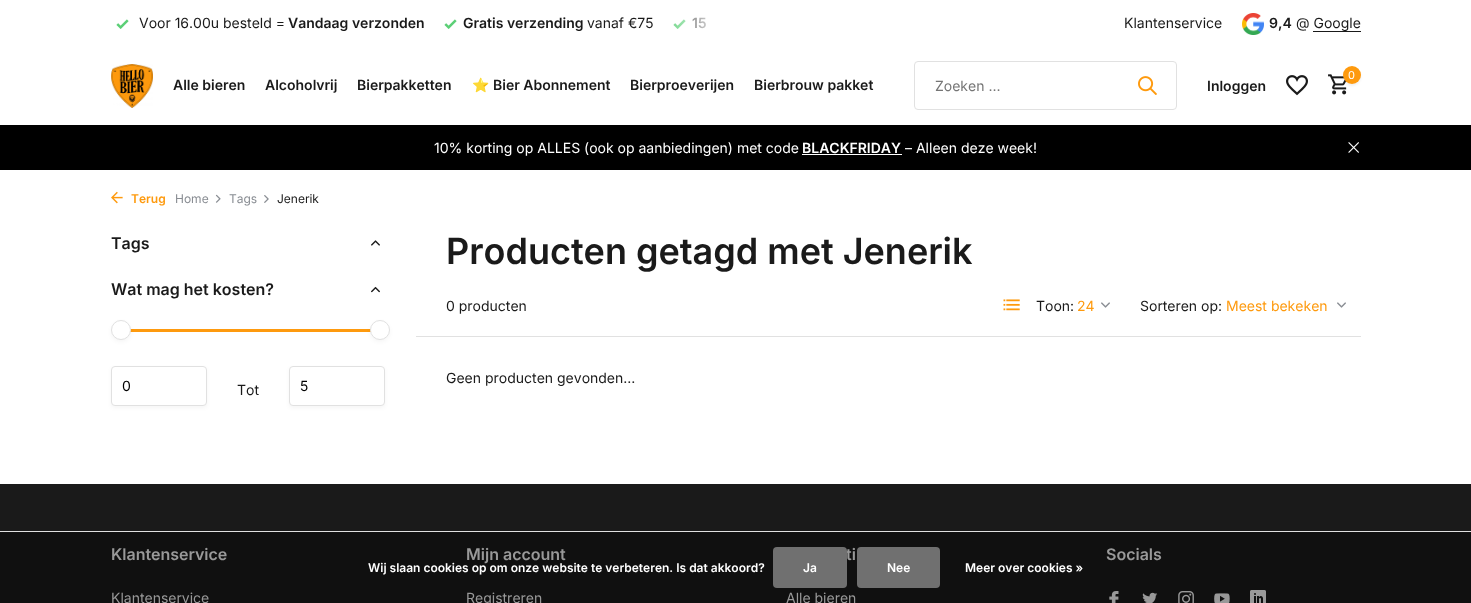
<svg xmlns="http://www.w3.org/2000/svg" width="1471" height="603" viewBox="0 0 1471 603">
  <style>*{font-kerning:none!important;font-variant-ligatures:none!important}</style>
  <defs>
    <linearGradient id="g1" gradientUnits="userSpaceOnUse" x1="721" y1="23" x2="660" y2="22"><stop offset="0" stop-color="#fff"/><stop offset="1" stop-color="#fff" stop-opacity="0"/></linearGradient>
  </defs>
  <rect width="100%" height="100%" fill="#fff"/>
  <image x="116" y="19" width="13" height="10" href="img/1.png"/>
  <image x="444" y="19" width="13" height="10" href="img/1.png"/>
  <image x="673" y="19" width="13" height="10" href="img/1.png"/>
  <image x="1242" y="13" width="22" height="22" href="img/2.png"/>
  <path d="M1313 31h48v1H1313z" fill="#1a1a1a"/>
  <image x="111" y="64" width="42" height="44" href="img/3.png"/>
  <rect x="914.5" y="61.5" width="262" height="48" rx="3.5" fill="none" stroke="#e1e1e1"/>
  <image x="1138" y="76" width="19" height="19" href="img/4.png"/>
  <image x="1286" y="75" width="22" height="21" href="img/5.png"/>
  <image x="1328" y="74" width="19" height="21" href="img/6.png"/>
  <rect x="1343" y="68" width="18" height="18" rx="9" fill="#0000000f" filter="blur(1px)"/>
  <circle cx="1352" cy="75" r="9" fill="#fe9a0e"/>
  <path d="M0 125h1471v45H0z" fill="#000"/>
  <path d="M802 154h100v1H802z" fill="#fff"/>
  <image x="1348" y="142" width="11" height="11" href="img/7.png"/>
  <image x="111" y="191" width="12" height="13" href="img/8.png"/>
  <image x="215" y="194" width="6" height="9" href="img/9.png"/>
  <image x="264" y="195" width="5" height="8" href="img/10.png"/>
  <image x="371" y="240" width="9" height="6" href="img/11.png"/>
  <image x="371" y="286" width="9" height="7" href="img/12.png"/>
  <path d="M130 329h248v3H130z" fill="#fe9a0e"/>
  <rect x="111" y="322" width="20" height="20" rx="10" fill="#0000000a" filter="blur(2px)"/>
  <circle cx="121" cy="330" r="9.5" fill="#fff" stroke="#e1e1e1"/>
  <rect x="370" y="322" width="20" height="20" rx="10" fill="#0000000a" filter="blur(2px)"/>
  <circle cx="380" cy="330" r="9.5" fill="#fff" stroke="#e1e1e1"/>
  <rect x="111" y="368" width="96" height="40" rx="4" fill="#0000000a" filter="blur(2px)"/>
  <rect x="111.5" y="366.5" width="95" height="39" rx="3.5" fill="#fff" stroke="#e1e1e1"/>
  <rect x="289" y="368" width="96" height="40" rx="4" fill="#0000000a" filter="blur(2px)"/>
  <rect x="289.5" y="366.5" width="95" height="39" rx="3.5" fill="#fff" stroke="#e1e1e1"/>
  <image x="1003" y="299" width="17" height="12" href="img/13.png"/>
  <image x="1101" y="302" width="9" height="6" href="img/14.png"/>
  <image x="1337" y="302" width="9" height="6" href="img/14.png"/>
  <path d="M416 336h945v1H416z" fill="#e1e1e1"/>
  <path d="M0 484h1471v47H0z" fill="#1a1a1a"/>
  <path d="M0 532h1471v71H0z" fill="#101010"/>
  <image x="1109" y="591" width="10" height="12" href="img/15.png"/>
  <image x="1142" y="592" width="16" height="11" href="img/16.png"/>
  <image x="1178" y="591" width="16" height="12" href="img/17.png"/>
  <image x="1214" y="593" width="16" height="10" href="img/18.png"/>
  <image x="1250" y="590" width="16" height="13" href="img/19.png"/>
  <path d="M0 531h1471v1H0z" fill="#e1e1e1"/>
  <rect x="857" y="547" width="83" height="41" rx="4" fill="#707070"/>
  <text x="139" y="28" font-family="Inter" font-size="14" fill="#1a1a1a">Voor 16.00u besteld =</text>
  <g font-family="Inter" font-size="14" font-weight="600" fill="#1a1a1a">
    <text x="288" y="28">Vandaag verzonden</text>
    <text x="463" y="28">Gratis verzending</text>
  </g>
  <text x="587" y="28" font-family="Inter" font-size="14" fill="#1a1a1a">vanaf €75</text>
  <text x="692" y="28" font-family="Inter" font-size="14" font-weight="600" fill="#1a1a1a">15</text>
  <path d="M673 17h33v12H673z" fill="url(#g1)"/>
  <text x="1124" y="28" font-family="Inter" font-size="14" fill="#1a1a1a">Klantenservice</text>
  <text x="1269" y="28" font-family="Inter" font-size="14" font-weight="600" fill="#1a1a1a">9,4</text>
  <text x="1296" y="28" font-family="Inter" font-size="14" fill="#1a1a1a">@ Google</text>
  <g font-family="Inter" font-size="14" font-weight="600" fill="#1a1a1a">
    <text x="173" y="90">Alle bieren</text>
    <text x="265" y="90">Alcoholvrij</text>
    <text x="357" y="90">Bierpakketten</text>
  </g>
  <text x="472" y="90" font-family="Noto Color Emoji" font-size="14" font-weight="bold" fill="#1a1a1a">⭐</text>
  <g font-family="Inter" font-size="14" font-weight="600" fill="#1a1a1a">
    <text x="493" y="90">Bier Abonnement</text>
    <text x="630" y="90">Bierproeverijen</text>
    <text x="754" y="90">Bierbrouw pakket</text>
  </g>
  <text x="935" y="91" font-family="Inter" font-size="14" fill="#757575">Zoeken ...</text>
  <text x="1207" y="91" font-family="Inter" font-size="14" font-weight="600" fill="#1a1a1a">Inloggen</text>
  <text x="1348" y="79" font-family="Inter" font-size="11" fill="#fff">0</text>
  <text x="434" y="153" font-family="Inter" font-size="14" fill="#fff">10% korting op ALLES (ook op aanbiedingen) met code</text>
  <text x="802" y="153" font-family="Inter" font-size="14" font-weight="600" fill="#fff">BLACKFRIDAY</text>
  <text x="905" y="153" font-family="Inter" font-size="14" fill="#fff">– Alleen deze week!</text>
  <text x="131" y="203" font-family="Inter" font-size="12" font-weight="600" fill="#fe9a0e">Terug</text>
  <g font-family="Inter" font-size="12" fill="#898d93">
    <text x="175" y="203">Home</text>
    <text x="229" y="203">Tags</text>
  </g>
  <text x="277" y="203" font-family="Inter" font-size="12" fill="#1a1a1a">Jenerik</text>
  <g font-family="Inter" font-size="16" font-weight="600" fill="#1a1a1a">
    <text x="111" y="249">Tags</text>
    <text x="111" y="295">Wat mag het kosten?</text>
  </g>
  <text x="122" y="391" font-family="Inter" font-size="14" fill="#000">0</text>
  <text x="237" y="395" font-family="Inter" font-size="14" fill="#1a1a1a">Tot</text>
  <text x="300" y="391" font-family="Inter" font-size="14" fill="#000">5</text>
  <text x="446" y="264" font-family="Inter" font-size="36" font-weight="600" fill="#1a1a1a">Producten getagd met Jenerik</text>
  <g font-family="Inter" font-size="14" fill="#1a1a1a">
    <text x="446" y="311">0 producten</text>
    <text x="1036" y="311">Toon:</text>
  </g>
  <text x="1077" y="311" font-family="Inter" font-size="14" fill="#fe9a0e">24</text>
  <text x="1140" y="311" font-family="Inter" font-size="14" fill="#1a1a1a">Sorteren op:</text>
  <text x="1226" y="311" font-family="Inter" font-size="14" fill="#fe9a0e">Meest bekeken</text>
  <text x="446" y="383" font-family="Inter" font-size="14" fill="#1a1a1a">Geen producten gevonden...</text>
  <text x="111" y="560" font-family="Inter" font-size="16" font-weight="600" fill="#999">Klantenservice</text>
  <text x="111" y="603" font-family="Inter" font-size="14" fill="#999">Klantenservice</text>
  <text x="466" y="560" font-family="Inter" font-size="16" font-weight="600" fill="#999">Mijn account</text>
  <text x="466" y="603" font-family="Inter" font-size="14" fill="#999">Registreren</text>
  <text x="846" y="560" font-family="Inter" font-size="16" font-weight="600" fill="#999">ti</text>
  <text x="786" y="603" font-family="Inter" font-size="14" fill="#999">Alle bieren</text>
  <text x="1106" y="560" font-family="Inter" font-size="16" font-weight="600" fill="#999">Socials</text>
  <text x="368" y="572" font-family="Inter" font-size="12" font-weight="600" fill="#fff">Wij slaan cookies op om onze website te verbeteren. Is dat akkoord?</text>
  <rect x="773" y="547" width="74" height="41" rx="4" fill="#707070"/>
  <g font-family="Inter" font-size="12" font-weight="600" fill="#fff">
    <text x="803" y="572">Ja</text>
    <text x="887" y="572">Nee</text>
    <text x="965" y="572">Meer over cookies »</text>
  </g>
</svg>
